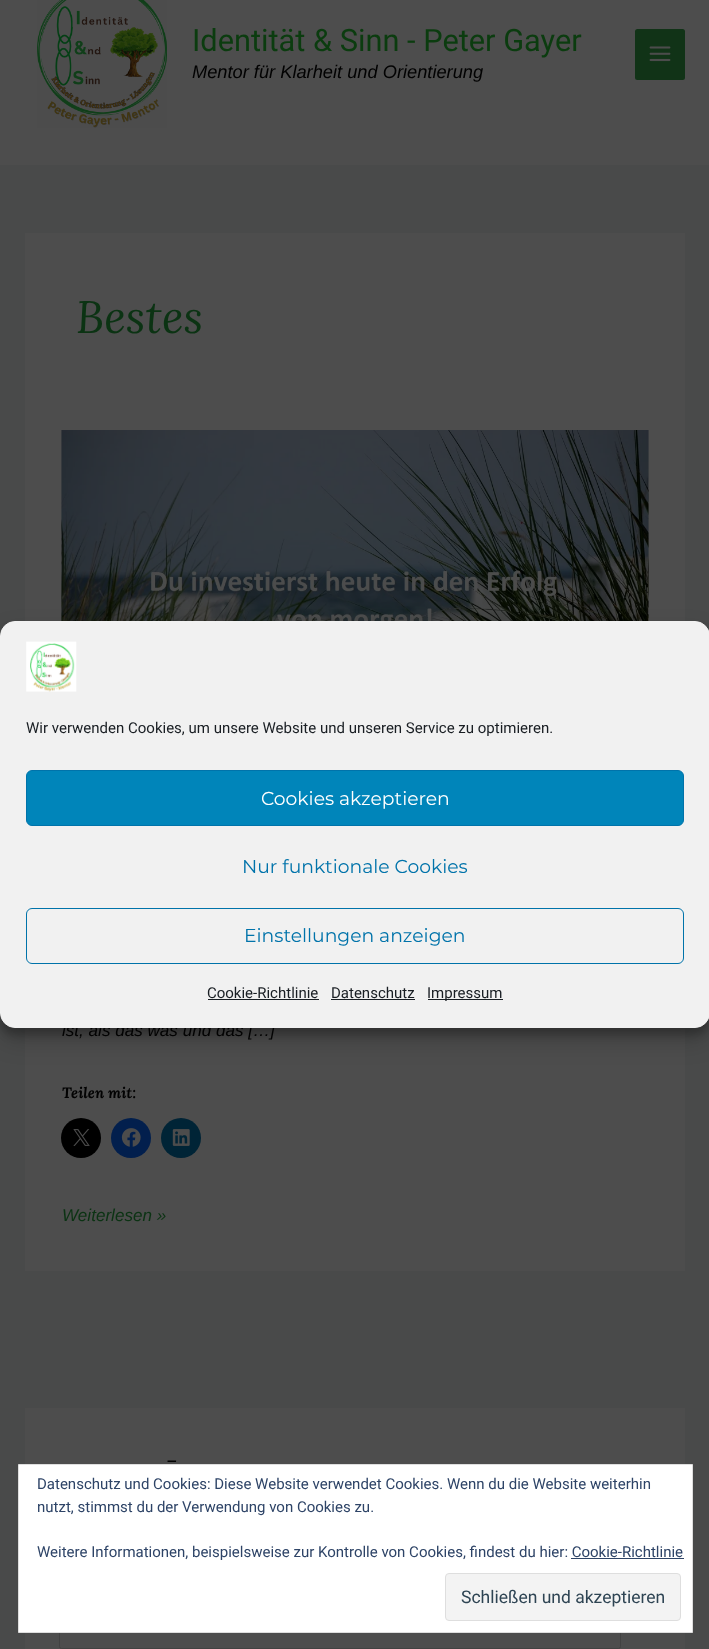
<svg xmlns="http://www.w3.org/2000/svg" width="709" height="1649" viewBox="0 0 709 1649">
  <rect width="100%" height="100%" fill="#494a4a"/>
  <path d="M0 0h709v165H0z" fill="#4d4d4d"/>
  <image x="37" y="0" width="130" height="128" href="img/1.png"/>
  <rect x="635" y="29" width="50" height="51" rx="2.5" fill="#113317"/>
  <image x="649" y="46" width="22" height="16" href="img/2.png"/>
  <path d="M25 233h660v1038H25z" fill="#4d4d4d"/>
  <image x="61" y="430" width="588" height="191" href="img/3.png"/>
  <circle cx="81" cy="1138" r="20" fill="#000"/>
  <image x="73" y="1129" width="17" height="17" href="img/4.png"/>
  <circle cx="131" cy="1138" r="20" fill="#021f4d"/>
  <image x="121" y="1128" width="20" height="19" href="img/5.png"/>
  <circle cx="181" cy="1138" r="20" fill="#002436"/>
  <image x="172" y="1129" width="18" height="17" href="img/6.png"/>
  <path d="M25 1408h660v241H25z" fill="#4d4d4d"/>
  <rect x="59.5" y="1600.5" width="561" height="48" rx="2" fill="none" stroke="#424242"/>
  <rect y="629" width="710" height="406" rx="15" fill="#0000003b" filter="blur(4px)"/>
  <rect y="634" width="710" height="406" rx="15" fill="#00000030" filter="blur(12.5px)"/>
  <path d="M18.5 1464.5h674v168H18.5z" fill="#fff" stroke="#dedede"/>
  <path d="M571 1558h113v1H571z" fill="#2e4467"/>
  <rect x="445.5" y="1573.5" width="235" height="47" rx="3.5" fill="#f3f3f3" stroke="#dedede"/>
  <text x="192" y="51" font-family="Roboto" font-size="30.75" fill="#0b3c0f">Identität &amp; Sinn - Peter Gayer</text>
  <text x="192" y="78" font-family="Liberation Sans" font-size="18.25" font-style="italic" fill="#020202">Mentor für Klarheit und Orientierung</text>
  <text x="76" y="333" font-family="Lora" font-size="45.5" font-style="italic" fill="#0b3313">Bestes</text>
  <text x="62" y="1036" font-family="Liberation Sans" font-size="17.1" font-style="italic" fill="#020202">ist, als das was und das […]</text>
  <text x="62" y="1098" font-family="Lora" font-size="15" font-weight="bold" font-style="italic" fill="#020202">Teilen mit:</text>
  <text x="62" y="1221" font-family="Liberation Sans" font-size="17.1" font-style="italic" fill="#0b3313">Weiterlesen »</text>
  <text x="166" y="1469" font-family="Lora" font-size="24" font-style="italic" fill="#020202">-</text>
  <rect x="0.5" y="621.5" width="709" height="406" rx="14.5" fill="#f1f1f1" stroke="#f1f1f1"/>
  <image x="26" y="641" width="51" height="51" href="img/7.png"/>
  <text x="26" y="733" font-family="Roboto" font-size="15" fill="#191e23">Wir verwenden Cookies, um unsere Website und unseren Service zu optimieren.</text>
  <rect x="26.5" y="770.5" width="657" height="55" rx="5.5" fill="#0085ba" stroke="#0073aa"/>
  <text x="261" y="805" font-family="Montserrat" font-size="18.75" font-weight="100" fill="#fff">Cookies akzeptieren</text>
  <text x="242" y="873" font-family="Montserrat" font-size="18.75" font-weight="100" fill="#0073aa">Nur funktionale Cookies</text>
  <rect x="26.5" y="908.5" width="657" height="55" rx="5.5" fill="none" stroke="#0073aa"/>
  <text x="244" y="942" font-family="Montserrat" font-size="18.75" font-weight="100" fill="#0073aa">Einstellungen anzeigen</text>
  <text x="207" y="998" font-family="Roboto" font-size="15" fill="#191e23">Cookie-Richtlinie</text>
  <path d="M208 999h111v1H208z" fill="#191e23"/>
  <text x="331" y="998" font-family="Roboto" font-size="15" fill="#191e23">Datenschutz</text>
  <path d="M331 999h84v1H331z" fill="#191e23"/>
  <path d="M428 999h75v1H428z" fill="#191e23"/>
  <text x="427" y="998" font-family="Roboto" font-size="15" fill="#191e23">Impressum</text>
  <g font-family="Roboto" font-size="15" fill="#2e4467">
    <text x="37" y="1489">Datenschutz und Cookies: Diese Website verwendet Cookies. Wenn du die Website weiterhin</text>
    <text x="37" y="1512">nutzt, stimmst du der Verwendung von Cookies zu.</text>
    <text x="37" y="1557">Weitere Informationen, beispielsweise zur Kontrolle von Cookies, findest du hier: Cookie-Richtlinie</text>
  </g>
  <text x="461" y="1603" font-family="Roboto" font-size="17.5" fill="#2e4453">Schließen und akzeptieren</text>
</svg>
